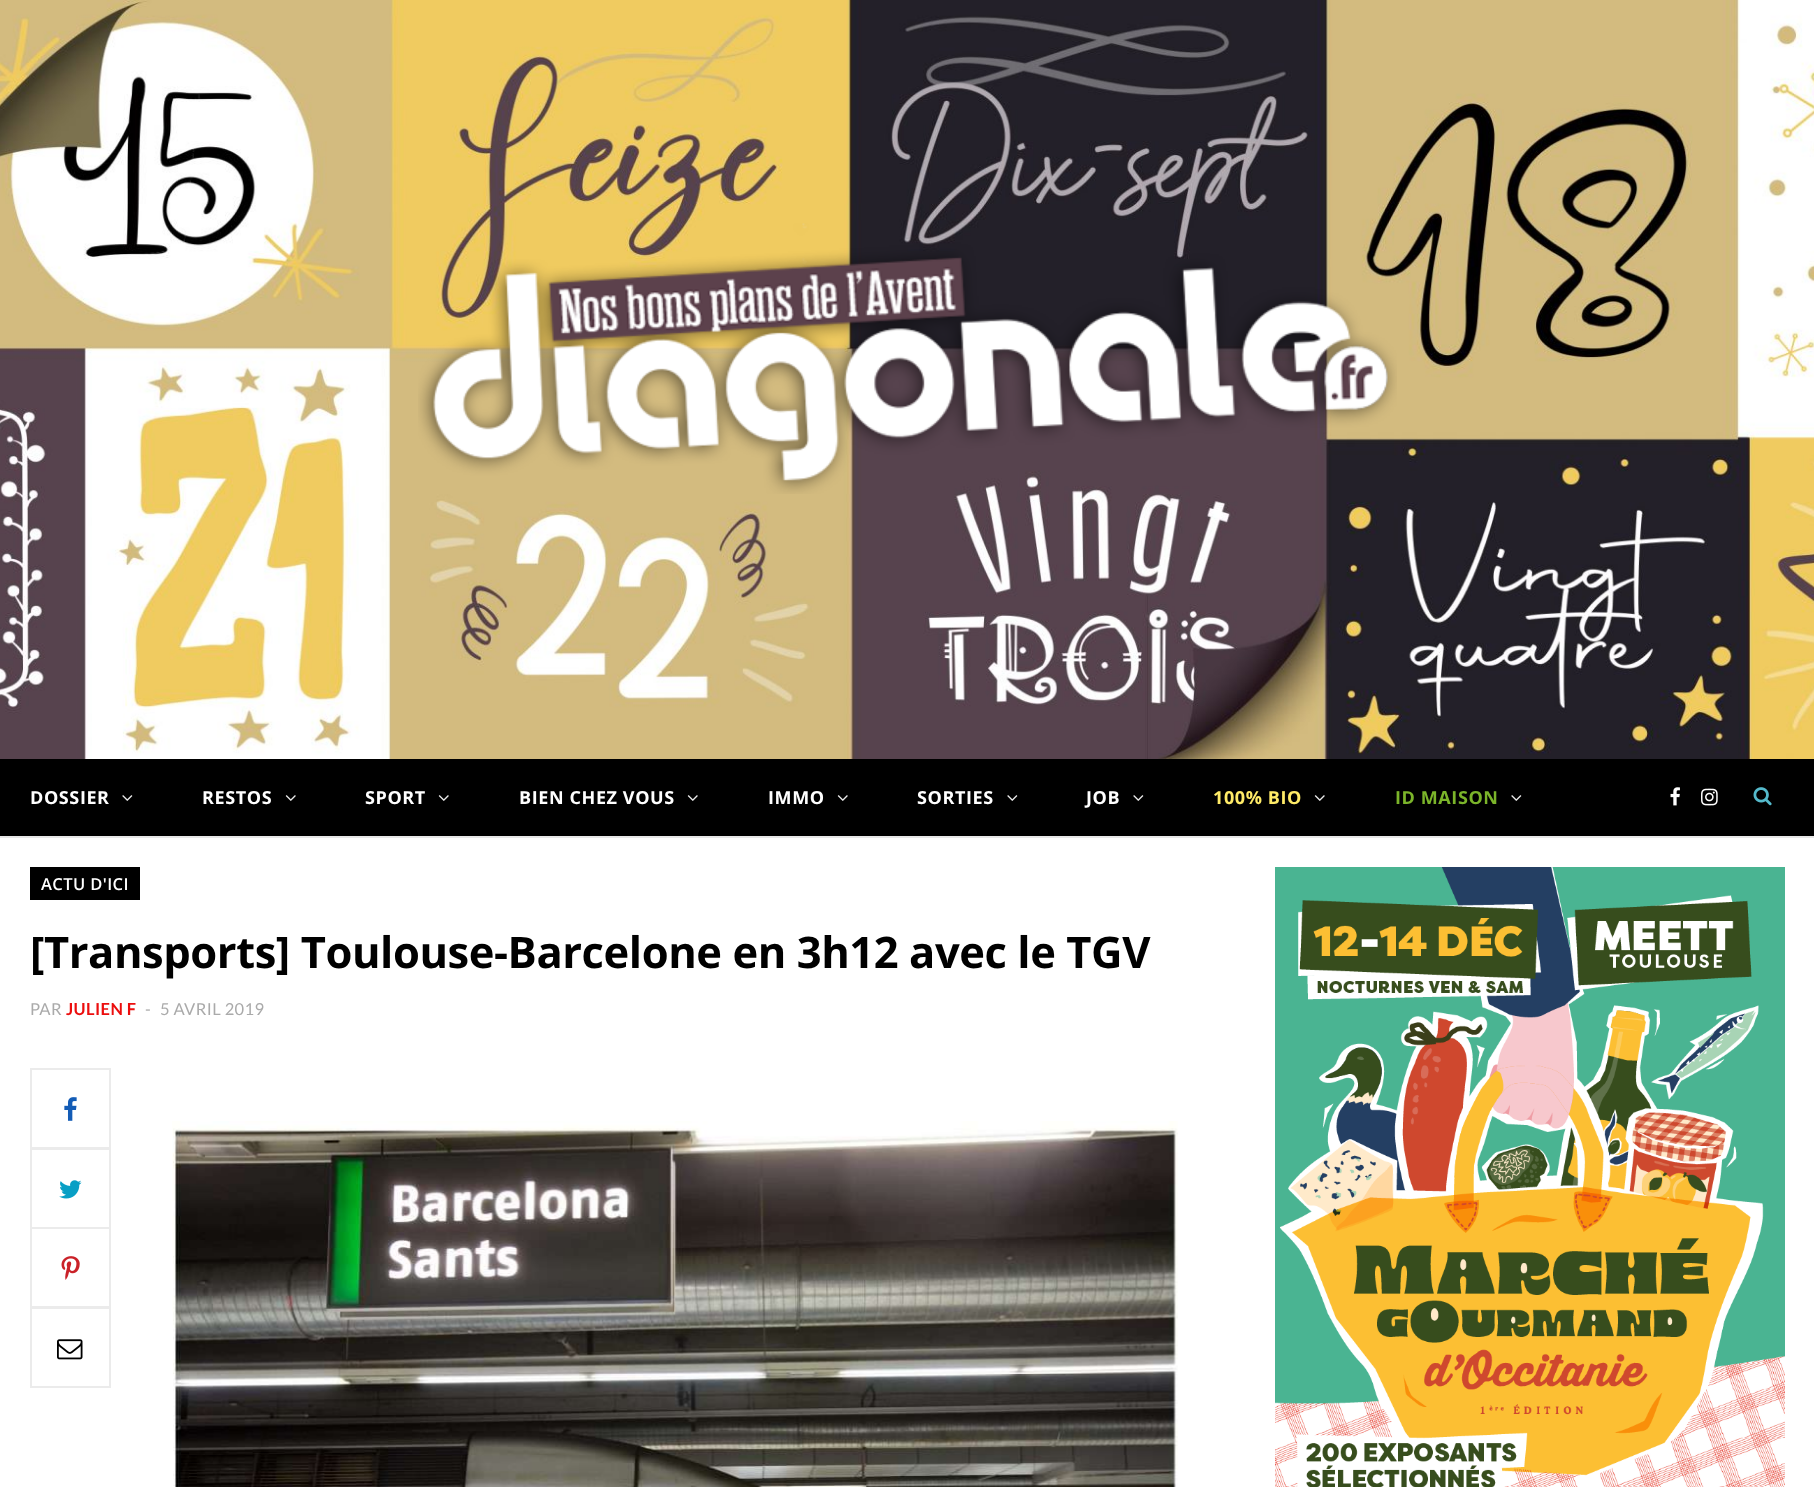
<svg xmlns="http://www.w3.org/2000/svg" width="1814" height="1487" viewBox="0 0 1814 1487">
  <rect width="100%" height="100%" fill="#fff"/>
  <path d="M0 836h1814v2H0z" fill="#e7e7e7"/>
  <image x="0" y="0" width="1814" height="759" href="img/1.png"/>
  <image x="418" y="223" width="979" height="271" href="img/2.png"/>
  <path d="M0 759h1814v77H0z" fill="#000"/>
  <image x="122" y="795" width="11" height="6" href="img/3.png"/>
  <image x="285" y="795" width="11" height="6" href="img/4.png"/>
  <image x="438" y="795" width="11" height="6" href="img/4.png"/>
  <image x="687" y="795" width="11" height="6" href="img/4.png"/>
  <image x="837" y="795" width="11" height="6" href="img/4.png"/>
  <image x="1007" y="795" width="11" height="6" href="img/3.png"/>
  <image x="1133" y="795" width="11" height="6" href="img/3.png"/>
  <image x="1314" y="795" width="11" height="6" href="img/4.png"/>
  <image x="1511" y="795" width="11" height="6" href="img/3.png"/>
  <image x="1670" y="787" width="10" height="19" href="img/5.png"/>
  <image x="1701" y="788" width="17" height="18" href="img/6.png"/>
  <image x="1753" y="787" width="19" height="19" href="img/7.png"/>
  <path d="M30 867h110v33H30z" fill="#000"/>
  <path d="M31 1069h79v79H31z" fill="none" stroke="#ebebeb" stroke-width="2"/>
  <image x="64" y="1097" width="13" height="24" href="img/8.png"/>
  <path d="M31 1149h79v79H31z" fill="none" stroke="#ebebeb" stroke-width="2"/>
  <image x="59" y="1180" width="23" height="19" href="img/9.png"/>
  <path d="M31 1228h79v79H31z" fill="none" stroke="#ebebeb" stroke-width="2"/>
  <image x="61" y="1256" width="19" height="24" href="img/10.png"/>
  <path d="M31 1308h79v79H31z" fill="none" stroke="#ebebeb" stroke-width="2"/>
  <image x="57" y="1339" width="26" height="21" href="img/11.png"/>
  <image x="172" y="1121" width="1006" height="366" href="img/12.png"/>
  <image x="1275" y="867" width="510" height="620" href="img/13.png"/>
  <g font-family="Open Sans" font-size="18" font-weight="bold" letter-spacing="0.6" fill="#fff">
    <text x="30" y="804">DOSSIER</text>
    <text x="202" y="804">RESTOS</text>
    <text x="365" y="804">SPORT</text>
    <text x="519" y="804">BIEN CHEZ VOUS</text>
    <text x="768" y="804">IMMO</text>
    <text x="917" y="804">SORTIES</text>
    <text x="1086" y="804">JOB</text>
  </g>
  <text x="1213" y="804" font-family="Open Sans" font-size="18" font-weight="bold" letter-spacing="0.6" fill="#ffeb67">100% BIO</text>
  <text x="1395" y="804" font-family="Open Sans" font-size="18" font-weight="bold" letter-spacing="0.6" fill="#7bb42a">ID MAISON</text>
  <text x="41" y="890" font-family="Open Sans" font-size="16.5" font-weight="600" letter-spacing="0.4" fill="#fff">ACTU D'ICI</text>
  <text x="30" y="968" font-family="Open Sans" font-size="43.5" font-weight="bold" letter-spacing="-0.43" fill="#000">[Transports] Toulouse-Barcelone en 3h12 avec le TGV</text>
  <text x="30" y="1015" font-family="Lato" font-size="16.5" letter-spacing="0.4" fill="#aaa">PAR</text>
  <text x="66" y="1015" font-family="Lato" font-size="16.5" font-weight="bold" letter-spacing="0.4" fill="#ec0e0e">JULIEN F</text>
  <text x="145" y="1015" font-family="Lato" font-size="16.5" fill="#aaa">-</text>
  <text x="160" y="1015" font-family="Lato" font-size="16.5" letter-spacing="0.4" fill="#aaa">5 AVRIL 2019</text>
</svg>
